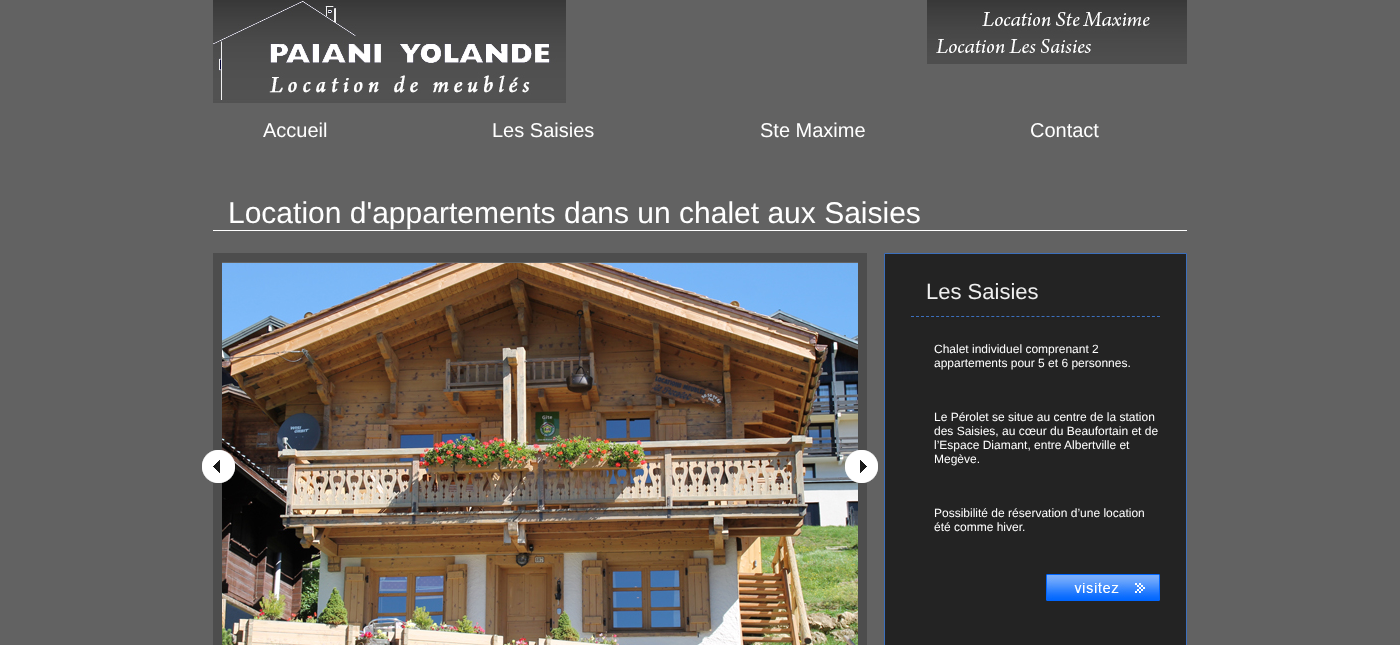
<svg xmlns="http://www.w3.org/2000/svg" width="1400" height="645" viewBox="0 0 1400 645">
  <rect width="100%" height="100%" fill="#626262"/>
  <image x="213" y="0" width="353" height="103" href="img/1.png"/>
  <image x="927" y="0" width="260" height="64" href="img/2.png"/>
  <path d="M213 230h974v1H213z" fill="#fff"/>
  <path d="M217.5 257.5h645v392H217.5z" fill="none" stroke="#4d4d4d" stroke-width="9"/>
  <image x="222" y="263" width="636" height="382" href="img/4.png"/>
  <image x="202" y="450" width="33" height="33" href="img/3.png"/>
  <image x="845" y="450" width="33" height="33" href="img/5.png"/>
  <path d="M884.5 253.5h302v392H884.5z" fill="#232323" stroke="#3c6fbc"/>
  <path d="M911 316.5H1160" fill="none" stroke="#3c6fbc" stroke-dasharray="3 2.02"/>
  <image x="1046" y="574" width="114" height="27" href="img/6.png"/>
  <g font-family="Liberation Sans" font-size="20" fill="#fff">
    <text x="263" y="137">Accueil</text>
    <text x="492" y="137">Les Saisies</text>
    <text x="760" y="137">Ste Maxime</text>
    <text x="1030" y="137">Contact</text>
  </g>
  <text x="228" y="223" font-family="Liberation Sans" font-size="30" fill="#fff">Location d'appartements dans un chalet aux Saisies</text>
  <text x="926" y="299" font-family="Liberation Sans" font-size="22" fill="#efefef">Les Saisies</text>
  <g font-family="Liberation Sans" font-size="12" fill="#fff">
    <text x="934" y="353">Chalet individuel comprenant 2</text>
    <text x="934" y="367">appartements pour 5 et 6 personnes.</text>
    <text x="934" y="421">Le Pérolet se situe au centre de la station</text>
    <text x="934" y="435">des Saisies, au cœur du Beaufortain et de</text>
    <text x="934" y="449">l’Espace Diamant, entre Albertville et</text>
    <text x="934" y="463">Megève.</text>
    <text x="934" y="517">Possibilité de réservation d’une location</text>
    <text x="934" y="531">été comme hiver.</text>
  </g>
</svg>
